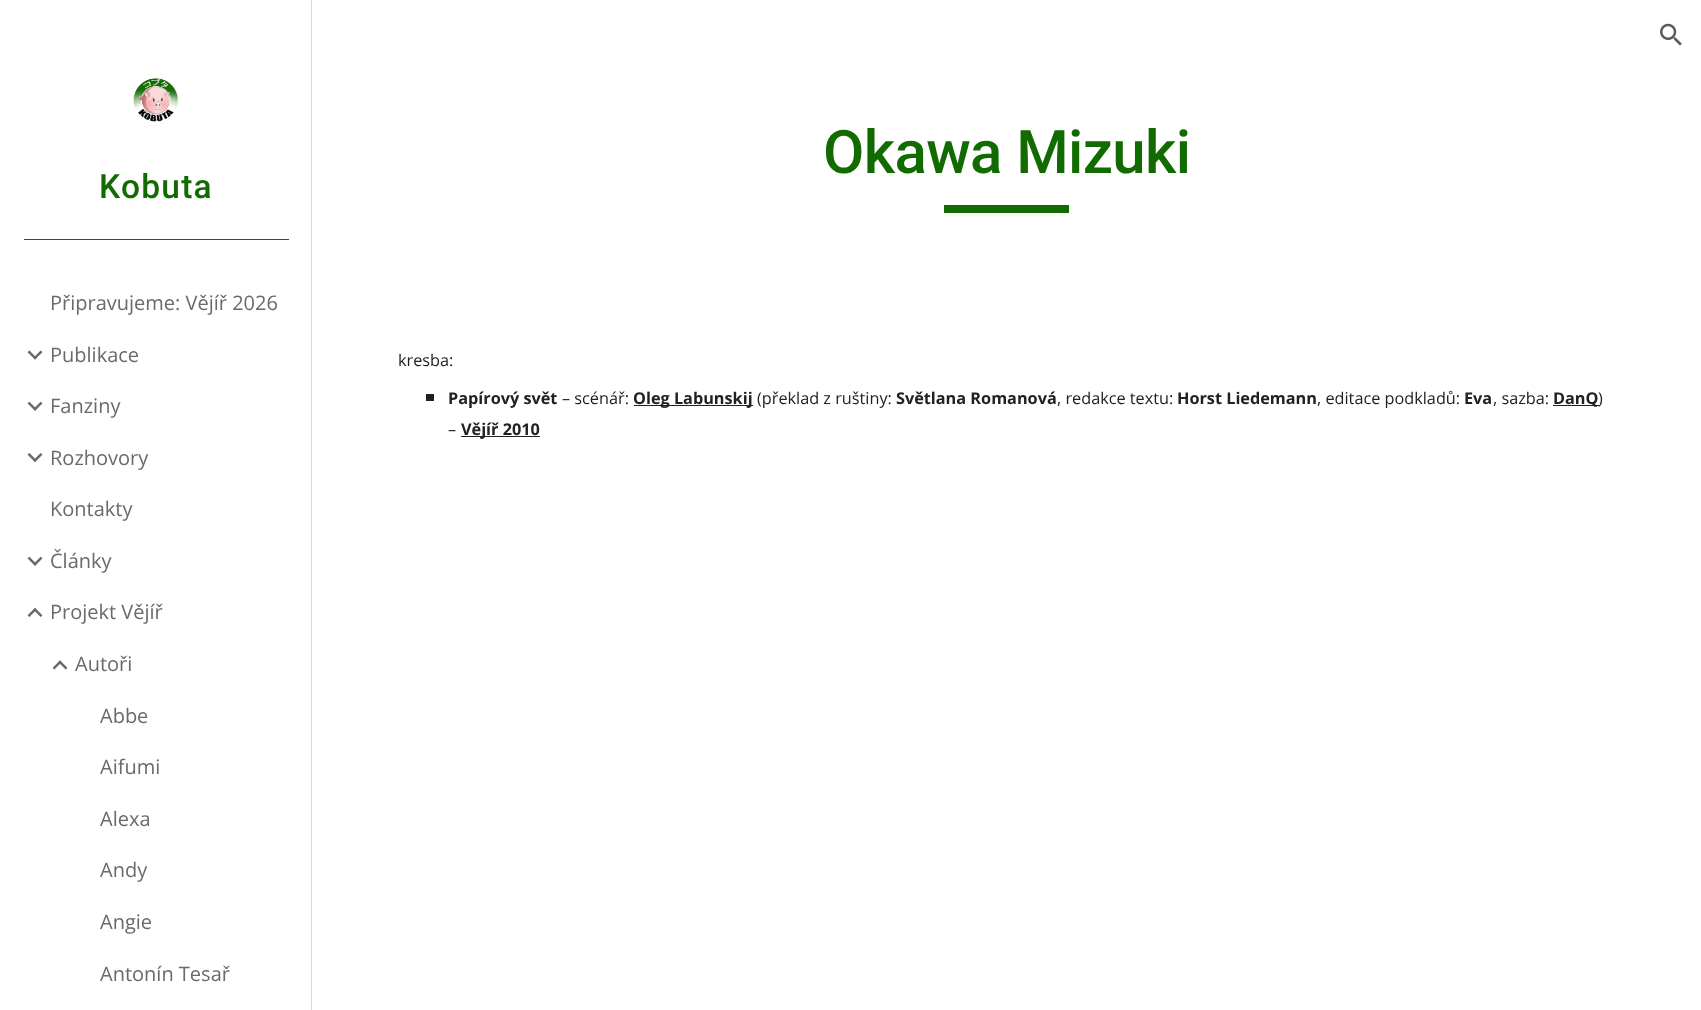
<svg xmlns="http://www.w3.org/2000/svg" width="1701" height="1010" viewBox="0 0 1701 1010">
  <rect width="100%" height="100%" fill="#fff"/>
  <image x="1660" y="23" width="22" height="23" href="img/1.png"/>
  <path d="M311 0h1v1010H311z" fill="#d9d9d9"/>
  <image x="133" y="78" width="46" height="44" href="img/2.png"/>
  <path d="M24 239h265v1H24z" fill="#126b00"/>
  <image x="27" y="350" width="16" height="10" href="img/3.png"/>
  <image x="27" y="401" width="16" height="10" href="img/4.png"/>
  <image x="27" y="453" width="16" height="9" href="img/5.png"/>
  <image x="27" y="556" width="16" height="10" href="img/4.png"/>
  <image x="27" y="608" width="16" height="9" href="img/6.png"/>
  <image x="52" y="660" width="16" height="10" href="img/7.png"/>
  <path d="M944 205h125v8H944z" fill="#126b00"/>
  <path d="M426 394h8v7H426z" fill="#212121"/>
  <path d="M634 405h119v1H634z" fill="#212121"/>
  <path d="M1553 405h46v1H1553z" fill="#212121"/>
  <path d="M461 436h79v1H461z" fill="#212121"/>
  <text x="99" y="198" font-family="Roboto" font-size="33.5" font-weight="500" letter-spacing="1.25" fill="#126b00">Kobuta</text>
  <g font-family="Open Sans" font-size="20" fill="#6a6a6a">
    <text x="50" y="310">Připravujeme: Vějíř 2026</text>
    <text x="50" y="362">Publikace</text>
    <text x="50" y="413">Fanziny</text>
    <text x="50" y="465">Rozhovory</text>
    <text x="50" y="516">Kontakty</text>
    <text x="50" y="568">Články</text>
    <text x="50" y="619">Projekt Vějíř</text>
    <text x="75" y="671">Autoři</text>
    <text x="100" y="723">Abbe</text>
    <text x="100" y="774">Aifumi</text>
    <text x="100" y="826">Alexa</text>
    <text x="100" y="877">Andy</text>
    <text x="100" y="929">Angie</text>
    <text x="100" y="981">Antonín Tesař</text>
  </g>
  <text x="823" y="173" font-family="Roboto" font-size="60" font-weight="500" letter-spacing="-0.6" fill="#126b00">Okawa Mizuki</text>
  <text x="398" y="366" font-family="Open Sans" font-size="16.25" fill="#212121">kresba:</text>
  <text x="448" y="404" font-family="Open Sans" font-size="16.25" font-weight="bold" fill="#212121">Papírový svět</text>
  <text x="562" y="404" font-family="Open Sans" font-size="16.25" fill="#212121">– scénář:</text>
  <text x="633" y="404" font-family="Open Sans" font-size="16.25" font-weight="bold" fill="#212121">Oleg Labunskij</text>
  <text x="757" y="404" font-family="Open Sans" font-size="16.25" fill="#212121">(překlad z ruštiny:</text>
  <text x="896" y="404" font-family="Open Sans" font-size="16.25" font-weight="bold" fill="#212121">Světlana Romanová</text>
  <text x="1057" y="404" font-family="Open Sans" font-size="16.25" fill="#212121">, redakce textu:</text>
  <text x="1177" y="404" font-family="Open Sans" font-size="16.25" font-weight="bold" fill="#212121">Horst Liedemann</text>
  <text x="1317" y="404" font-family="Open Sans" font-size="16.25" fill="#212121">, editace podkladů:</text>
  <text x="1464" y="404" font-family="Open Sans" font-size="16.25" font-weight="bold" fill="#212121">Eva</text>
  <text x="1493" y="404" font-family="Open Sans" font-size="16.25" fill="#212121">, sazba:</text>
  <text x="1553" y="404" font-family="Open Sans" font-size="16.25" font-weight="bold" fill="#212121">DanQ</text>
  <g font-family="Open Sans" font-size="16.25" fill="#212121">
    <text x="1598" y="404">)</text>
    <text x="448" y="435">–</text>
  </g>
  <text x="461" y="435" font-family="Open Sans" font-size="16.25" font-weight="bold" fill="#212121">Vějíř 2010</text>
</svg>
